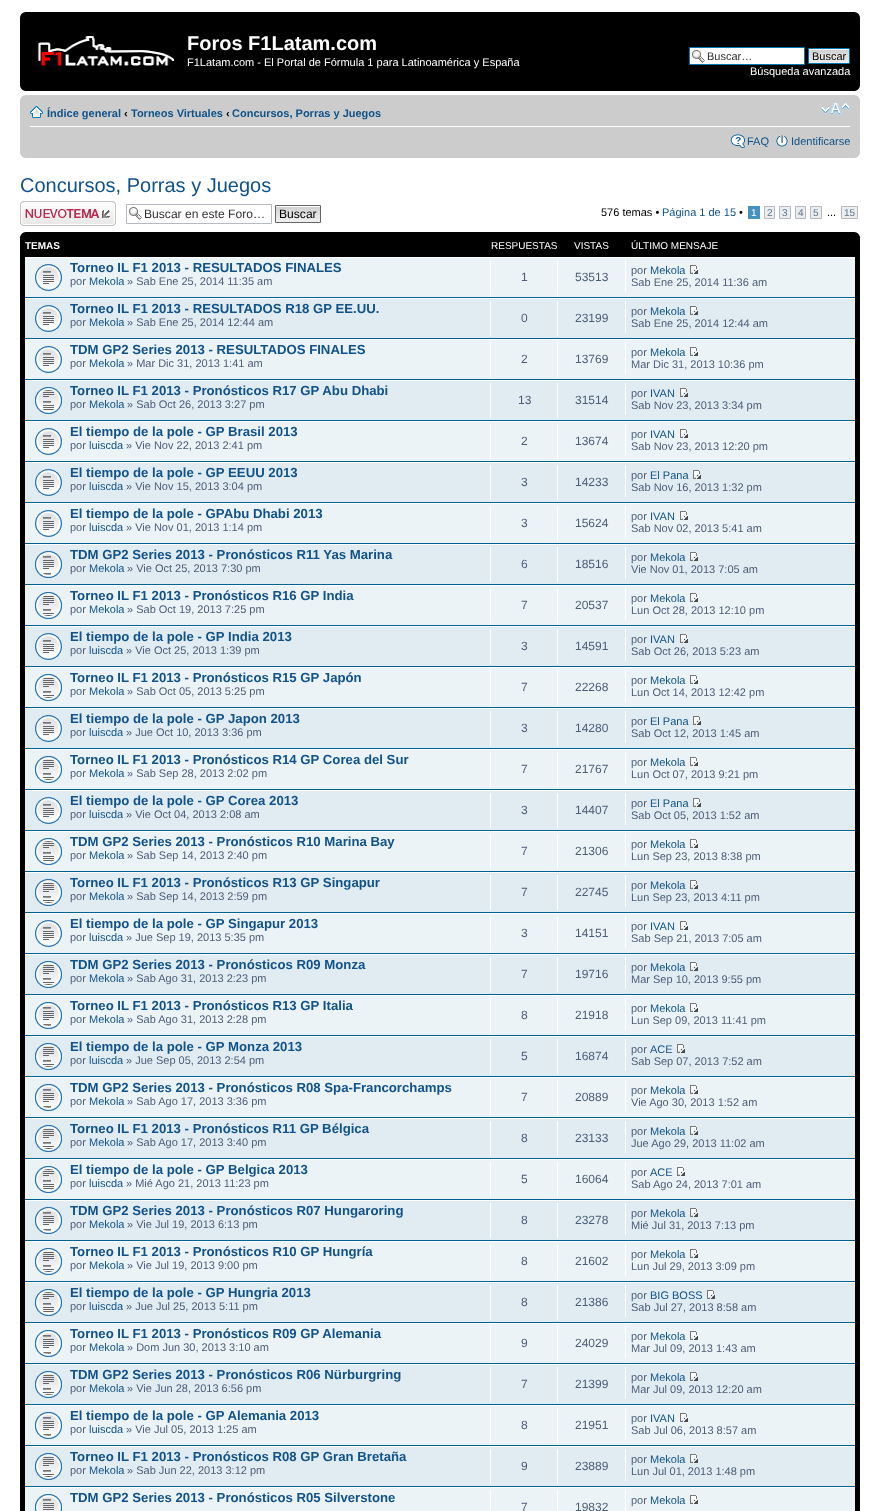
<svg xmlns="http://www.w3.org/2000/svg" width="880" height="1511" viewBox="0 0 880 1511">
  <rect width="100%" height="100%" fill="#fff"/>
  <path d="M20 12h840v79H20z" fill="#000"/>
  <image x="20" y="12" width="6" height="5" href="img/1.png"/>
  <image x="854" y="12" width="6" height="5" href="img/2.png"/>
  <image x="37" y="36" width="137" height="30" href="img/3.png"/>
  <path d="M690 48h114v16H690z" fill="#fff"/>
  <image x="692" y="50" width="13" height="13" href="img/4.png"/>
  <path d="M689.5 47.5h115v17H689.5z" fill="none" stroke="#0075b0"/>
  <image x="809" y="49" width="40" height="14" href="img/5.png"/>
  <path d="M808.5 48.5h41v15H808.5z" fill="none" stroke="#0075b0"/>
  <image x="20" y="86" width="5" height="5" href="img/6.png"/>
  <image x="855" y="86" width="5" height="5" href="img/7.png"/>
  <path d="M20 95h840v63H20z" fill="#ccc"/>
  <image x="20" y="95" width="5" height="5" href="img/8.png"/>
  <image x="855" y="95" width="5" height="5" href="img/9.png"/>
  <path d="M30 126h820v1H30z" fill="#fff"/>
  <image x="30" y="106" width="13" height="12" href="img/10.png"/>
  <image x="821" y="103" width="29" height="12" href="img/11.png"/>
  <image x="730" y="134" width="16" height="14" href="img/12.png"/>
  <image x="776" y="135" width="12" height="12" href="img/13.png"/>
  <image x="20" y="153" width="5" height="5" href="img/14.png"/>
  <image x="855" y="153" width="5" height="5" href="img/15.png"/>
  <image x="20" y="201" width="96" height="25" href="img/16.png"/>
  <image x="129" y="207" width="13" height="13" href="img/4.png"/>
  <path d="M126.5 204.5h145v19H126.5z" fill="none" stroke="#b4bac0"/>
  <image x="276" y="206" width="44" height="16" href="img/17.png"/>
  <path d="M275.5 205.5h45v17H275.5z" fill="none" stroke="#666"/>
  <path d="M748 206h12v13H748z" fill="#4692bf"/>
  <path d="M764.5 206.5h10v12H764.5z" fill="#ecedee" stroke="#b4bac0"/>
  <path d="M779.5 206.5h11v12H779.5z" fill="#ecedee" stroke="#b4bac0"/>
  <path d="M795.5 206.5h10v12H795.5z" fill="#ecedee" stroke="#b4bac0"/>
  <path d="M810.5 206.5h11v12H810.5z" fill="#ecedee" stroke="#b4bac0"/>
  <path d="M841.5 206.5h16v12H841.5z" fill="#ecedee" stroke="#b4bac0"/>
  <path d="M20 232h840v1279H20z" fill="#000"/>
  <image x="20" y="232" width="6" height="5" href="img/1.png"/>
  <image x="854" y="232" width="6" height="5" href="img/2.png"/>
  <path d="M25 258h830v39H25z" fill="#ecf3f7"/>
  <path d="M25 257h830v1H25z" fill="#fff"/>
  <path d="M25 297h830v1H25z" fill="#00608f"/>
  <image x="35" y="264" width="27" height="27" href="img/18.png"/>
  <path d="M490 260h1v35H490z" fill="#fff"/>
  <path d="M557 260h1v35H557z" fill="#fff"/>
  <path d="M625 260h1v32H625z" fill="#fff"/>
  <image x="690" y="265" width="8" height="9" href="img/19.png"/>
  <path d="M25 299h830v39H25z" fill="#e1ebf2"/>
  <path d="M25 298h830v1H25z" fill="#fff"/>
  <path d="M25 338h830v1H25z" fill="#00608f"/>
  <image x="35" y="305" width="27" height="27" href="img/20.png"/>
  <path d="M490 301h1v35H490z" fill="#fff"/>
  <path d="M557 301h1v35H557z" fill="#fff"/>
  <path d="M625 301h1v32H625z" fill="#fff"/>
  <image x="690" y="306" width="8" height="9" href="img/21.png"/>
  <path d="M25 340h830v39H25z" fill="#ecf3f7"/>
  <path d="M25 339h830v1H25z" fill="#fff"/>
  <path d="M25 379h830v1H25z" fill="#00608f"/>
  <image x="35" y="346" width="27" height="27" href="img/18.png"/>
  <path d="M490 342h1v35H490z" fill="#fff"/>
  <path d="M557 342h1v35H557z" fill="#fff"/>
  <path d="M625 342h1v32H625z" fill="#fff"/>
  <image x="690" y="347" width="8" height="9" href="img/19.png"/>
  <path d="M25 381h830v39H25z" fill="#e1ebf2"/>
  <path d="M25 380h830v1H25z" fill="#fff"/>
  <path d="M25 420h830v1H25z" fill="#00608f"/>
  <image x="35" y="387" width="27" height="27" href="img/22.png"/>
  <path d="M490 383h1v35H490z" fill="#fff"/>
  <path d="M557 383h1v35H557z" fill="#fff"/>
  <path d="M625 383h1v32H625z" fill="#fff"/>
  <image x="680" y="388" width="8" height="9" href="img/21.png"/>
  <path d="M25 422h830v39H25z" fill="#ecf3f7"/>
  <path d="M25 421h830v1H25z" fill="#fff"/>
  <path d="M25 461h830v1H25z" fill="#00608f"/>
  <image x="35" y="428" width="27" height="27" href="img/18.png"/>
  <path d="M490 424h1v35H490z" fill="#fff"/>
  <path d="M557 424h1v35H557z" fill="#fff"/>
  <path d="M625 424h1v32H625z" fill="#fff"/>
  <image x="680" y="429" width="8" height="9" href="img/19.png"/>
  <path d="M25 463h830v39H25z" fill="#e1ebf2"/>
  <path d="M25 462h830v1H25z" fill="#fff"/>
  <path d="M25 502h830v1H25z" fill="#00608f"/>
  <image x="35" y="469" width="27" height="27" href="img/20.png"/>
  <path d="M490 465h1v35H490z" fill="#fff"/>
  <path d="M557 465h1v35H557z" fill="#fff"/>
  <path d="M625 465h1v32H625z" fill="#fff"/>
  <image x="693" y="470" width="8" height="9" href="img/21.png"/>
  <path d="M25 504h830v39H25z" fill="#ecf3f7"/>
  <path d="M25 503h830v1H25z" fill="#fff"/>
  <path d="M25 543h830v1H25z" fill="#00608f"/>
  <image x="35" y="510" width="27" height="27" href="img/18.png"/>
  <path d="M490 506h1v35H490z" fill="#fff"/>
  <path d="M557 506h1v35H557z" fill="#fff"/>
  <path d="M625 506h1v32H625z" fill="#fff"/>
  <image x="680" y="511" width="8" height="9" href="img/19.png"/>
  <path d="M25 545h830v39H25z" fill="#e1ebf2"/>
  <path d="M25 544h830v1H25z" fill="#fff"/>
  <path d="M25 584h830v1H25z" fill="#00608f"/>
  <image x="35" y="551" width="27" height="27" href="img/23.png"/>
  <path d="M490 547h1v35H490z" fill="#fff"/>
  <path d="M557 547h1v35H557z" fill="#fff"/>
  <path d="M625 547h1v32H625z" fill="#fff"/>
  <image x="690" y="552" width="8" height="9" href="img/21.png"/>
  <path d="M25 586h830v39H25z" fill="#ecf3f7"/>
  <path d="M25 585h830v1H25z" fill="#fff"/>
  <path d="M25 625h830v1H25z" fill="#00608f"/>
  <image x="35" y="592" width="27" height="27" href="img/24.png"/>
  <path d="M490 588h1v35H490z" fill="#fff"/>
  <path d="M557 588h1v35H557z" fill="#fff"/>
  <path d="M625 588h1v32H625z" fill="#fff"/>
  <image x="690" y="593" width="8" height="9" href="img/19.png"/>
  <path d="M25 627h830v39H25z" fill="#e1ebf2"/>
  <path d="M25 626h830v1H25z" fill="#fff"/>
  <path d="M25 666h830v1H25z" fill="#00608f"/>
  <image x="35" y="633" width="27" height="27" href="img/20.png"/>
  <path d="M490 629h1v35H490z" fill="#fff"/>
  <path d="M557 629h1v35H557z" fill="#fff"/>
  <path d="M625 629h1v32H625z" fill="#fff"/>
  <image x="680" y="634" width="8" height="9" href="img/21.png"/>
  <path d="M25 668h830v39H25z" fill="#ecf3f7"/>
  <path d="M25 667h830v1H25z" fill="#fff"/>
  <path d="M25 707h830v1H25z" fill="#00608f"/>
  <image x="35" y="674" width="27" height="27" href="img/24.png"/>
  <path d="M490 670h1v35H490z" fill="#fff"/>
  <path d="M557 670h1v35H557z" fill="#fff"/>
  <path d="M625 670h1v32H625z" fill="#fff"/>
  <image x="690" y="675" width="8" height="9" href="img/19.png"/>
  <path d="M25 709h830v39H25z" fill="#e1ebf2"/>
  <path d="M25 708h830v1H25z" fill="#fff"/>
  <path d="M25 748h830v1H25z" fill="#00608f"/>
  <image x="35" y="715" width="27" height="27" href="img/20.png"/>
  <path d="M490 711h1v35H490z" fill="#fff"/>
  <path d="M557 711h1v35H557z" fill="#fff"/>
  <path d="M625 711h1v32H625z" fill="#fff"/>
  <image x="693" y="716" width="8" height="9" href="img/21.png"/>
  <path d="M25 750h830v39H25z" fill="#ecf3f7"/>
  <path d="M25 749h830v1H25z" fill="#fff"/>
  <path d="M25 789h830v1H25z" fill="#00608f"/>
  <image x="35" y="756" width="27" height="27" href="img/24.png"/>
  <path d="M490 752h1v35H490z" fill="#fff"/>
  <path d="M557 752h1v35H557z" fill="#fff"/>
  <path d="M625 752h1v32H625z" fill="#fff"/>
  <image x="690" y="757" width="8" height="9" href="img/19.png"/>
  <path d="M25 791h830v39H25z" fill="#e1ebf2"/>
  <path d="M25 790h830v1H25z" fill="#fff"/>
  <path d="M25 830h830v1H25z" fill="#00608f"/>
  <image x="35" y="797" width="27" height="27" href="img/20.png"/>
  <path d="M490 793h1v35H490z" fill="#fff"/>
  <path d="M557 793h1v35H557z" fill="#fff"/>
  <path d="M625 793h1v32H625z" fill="#fff"/>
  <image x="693" y="798" width="8" height="9" href="img/21.png"/>
  <path d="M25 832h830v39H25z" fill="#ecf3f7"/>
  <path d="M25 831h830v1H25z" fill="#fff"/>
  <path d="M25 871h830v1H25z" fill="#00608f"/>
  <image x="35" y="838" width="27" height="27" href="img/25.png"/>
  <path d="M490 834h1v35H490z" fill="#fff"/>
  <path d="M557 834h1v35H557z" fill="#fff"/>
  <path d="M625 834h1v32H625z" fill="#fff"/>
  <image x="690" y="839" width="8" height="9" href="img/19.png"/>
  <path d="M25 873h830v39H25z" fill="#e1ebf2"/>
  <path d="M25 872h830v1H25z" fill="#fff"/>
  <path d="M25 912h830v1H25z" fill="#00608f"/>
  <image x="35" y="879" width="27" height="27" href="img/26.png"/>
  <path d="M490 875h1v35H490z" fill="#fff"/>
  <path d="M557 875h1v35H557z" fill="#fff"/>
  <path d="M625 875h1v32H625z" fill="#fff"/>
  <image x="690" y="880" width="8" height="9" href="img/21.png"/>
  <path d="M25 914h830v39H25z" fill="#ecf3f7"/>
  <path d="M25 913h830v1H25z" fill="#fff"/>
  <path d="M25 953h830v1H25z" fill="#00608f"/>
  <image x="35" y="920" width="27" height="27" href="img/18.png"/>
  <path d="M490 916h1v35H490z" fill="#fff"/>
  <path d="M557 916h1v35H557z" fill="#fff"/>
  <path d="M625 916h1v32H625z" fill="#fff"/>
  <image x="680" y="921" width="8" height="9" href="img/19.png"/>
  <path d="M25 955h830v39H25z" fill="#e1ebf2"/>
  <path d="M25 954h830v1H25z" fill="#fff"/>
  <path d="M25 994h830v1H25z" fill="#00608f"/>
  <image x="35" y="961" width="27" height="27" href="img/26.png"/>
  <path d="M490 957h1v35H490z" fill="#fff"/>
  <path d="M557 957h1v35H557z" fill="#fff"/>
  <path d="M625 957h1v32H625z" fill="#fff"/>
  <image x="690" y="962" width="8" height="9" href="img/21.png"/>
  <path d="M25 996h830v39H25z" fill="#ecf3f7"/>
  <path d="M25 995h830v1H25z" fill="#fff"/>
  <path d="M25 1035h830v1H25z" fill="#00608f"/>
  <image x="35" y="1002" width="27" height="27" href="img/27.png"/>
  <path d="M490 998h1v35H490z" fill="#fff"/>
  <path d="M557 998h1v35H557z" fill="#fff"/>
  <path d="M625 998h1v32H625z" fill="#fff"/>
  <image x="690" y="1003" width="8" height="9" href="img/19.png"/>
  <path d="M25 1037h830v39H25z" fill="#e1ebf2"/>
  <path d="M25 1036h830v1H25z" fill="#fff"/>
  <path d="M25 1076h830v1H25z" fill="#00608f"/>
  <image x="35" y="1043" width="27" height="27" href="img/26.png"/>
  <path d="M490 1039h1v35H490z" fill="#fff"/>
  <path d="M557 1039h1v35H557z" fill="#fff"/>
  <path d="M625 1039h1v32H625z" fill="#fff"/>
  <image x="677" y="1044" width="8" height="9" href="img/21.png"/>
  <path d="M25 1078h830v39H25z" fill="#ecf3f7"/>
  <path d="M25 1077h830v1H25z" fill="#fff"/>
  <path d="M25 1117h830v1H25z" fill="#00608f"/>
  <image x="35" y="1084" width="27" height="27" href="img/27.png"/>
  <path d="M490 1080h1v35H490z" fill="#fff"/>
  <path d="M557 1080h1v35H557z" fill="#fff"/>
  <path d="M625 1080h1v32H625z" fill="#fff"/>
  <image x="690" y="1085" width="8" height="9" href="img/19.png"/>
  <path d="M25 1119h830v39H25z" fill="#e1ebf2"/>
  <path d="M25 1118h830v1H25z" fill="#fff"/>
  <path d="M25 1158h830v1H25z" fill="#00608f"/>
  <image x="35" y="1125" width="27" height="27" href="img/26.png"/>
  <path d="M490 1121h1v35H490z" fill="#fff"/>
  <path d="M557 1121h1v35H557z" fill="#fff"/>
  <path d="M625 1121h1v32H625z" fill="#fff"/>
  <image x="690" y="1126" width="8" height="9" href="img/21.png"/>
  <path d="M25 1160h830v39H25z" fill="#ecf3f7"/>
  <path d="M25 1159h830v1H25z" fill="#fff"/>
  <path d="M25 1199h830v1H25z" fill="#00608f"/>
  <image x="35" y="1166" width="27" height="27" href="img/25.png"/>
  <path d="M490 1162h1v35H490z" fill="#fff"/>
  <path d="M557 1162h1v35H557z" fill="#fff"/>
  <path d="M625 1162h1v32H625z" fill="#fff"/>
  <image x="677" y="1167" width="8" height="9" href="img/19.png"/>
  <path d="M25 1201h830v39H25z" fill="#e1ebf2"/>
  <path d="M25 1200h830v1H25z" fill="#fff"/>
  <path d="M25 1240h830v1H25z" fill="#00608f"/>
  <image x="35" y="1207" width="27" height="27" href="img/23.png"/>
  <path d="M490 1203h1v35H490z" fill="#fff"/>
  <path d="M557 1203h1v35H557z" fill="#fff"/>
  <path d="M625 1203h1v32H625z" fill="#fff"/>
  <image x="690" y="1208" width="8" height="9" href="img/21.png"/>
  <path d="M25 1242h830v39H25z" fill="#ecf3f7"/>
  <path d="M25 1241h830v1H25z" fill="#fff"/>
  <path d="M25 1281h830v1H25z" fill="#00608f"/>
  <image x="35" y="1248" width="27" height="27" href="img/24.png"/>
  <path d="M490 1244h1v35H490z" fill="#fff"/>
  <path d="M557 1244h1v35H557z" fill="#fff"/>
  <path d="M625 1244h1v32H625z" fill="#fff"/>
  <image x="690" y="1249" width="8" height="9" href="img/19.png"/>
  <path d="M25 1283h830v39H25z" fill="#e1ebf2"/>
  <path d="M25 1282h830v1H25z" fill="#fff"/>
  <path d="M25 1322h830v1H25z" fill="#00608f"/>
  <image x="35" y="1289" width="27" height="27" href="img/22.png"/>
  <path d="M490 1285h1v35H490z" fill="#fff"/>
  <path d="M557 1285h1v35H557z" fill="#fff"/>
  <path d="M625 1285h1v32H625z" fill="#fff"/>
  <image x="707" y="1290" width="8" height="9" href="img/21.png"/>
  <path d="M25 1324h830v39H25z" fill="#ecf3f7"/>
  <path d="M25 1323h830v1H25z" fill="#fff"/>
  <path d="M25 1363h830v1H25z" fill="#00608f"/>
  <image x="35" y="1330" width="27" height="27" href="img/27.png"/>
  <path d="M490 1326h1v35H490z" fill="#fff"/>
  <path d="M557 1326h1v35H557z" fill="#fff"/>
  <path d="M625 1326h1v32H625z" fill="#fff"/>
  <image x="690" y="1331" width="8" height="9" href="img/19.png"/>
  <path d="M25 1365h830v39H25z" fill="#e1ebf2"/>
  <path d="M25 1364h830v1H25z" fill="#fff"/>
  <path d="M25 1404h830v1H25z" fill="#00608f"/>
  <image x="35" y="1371" width="27" height="27" href="img/26.png"/>
  <path d="M490 1367h1v35H490z" fill="#fff"/>
  <path d="M557 1367h1v35H557z" fill="#fff"/>
  <path d="M625 1367h1v32H625z" fill="#fff"/>
  <image x="690" y="1372" width="8" height="9" href="img/21.png"/>
  <path d="M25 1406h830v39H25z" fill="#ecf3f7"/>
  <path d="M25 1405h830v1H25z" fill="#fff"/>
  <path d="M25 1445h830v1H25z" fill="#00608f"/>
  <image x="35" y="1412" width="27" height="27" href="img/27.png"/>
  <path d="M490 1408h1v35H490z" fill="#fff"/>
  <path d="M557 1408h1v35H557z" fill="#fff"/>
  <path d="M625 1408h1v32H625z" fill="#fff"/>
  <image x="680" y="1413" width="8" height="9" href="img/19.png"/>
  <path d="M25 1447h830v39H25z" fill="#e1ebf2"/>
  <path d="M25 1446h830v1H25z" fill="#fff"/>
  <path d="M25 1486h830v1H25z" fill="#00608f"/>
  <image x="35" y="1453" width="27" height="27" href="img/26.png"/>
  <path d="M490 1449h1v35H490z" fill="#fff"/>
  <path d="M557 1449h1v35H557z" fill="#fff"/>
  <path d="M625 1449h1v32H625z" fill="#fff"/>
  <image x="690" y="1454" width="8" height="9" href="img/21.png"/>
  <path d="M25 1488h830v23H25z" fill="#ecf3f7"/>
  <path d="M25 1487h830v1H25z" fill="#fff"/>
  <image x="35" y="1494" width="27" height="17" href="img/28.png"/>
  <path d="M490 1490h1v21H490z" fill="#fff"/>
  <path d="M557 1490h1v21H557z" fill="#fff"/>
  <path d="M625 1490h1v21H625z" fill="#fff"/>
  <image x="690" y="1495" width="8" height="9" href="img/19.png"/>
  <text x="187" y="50" font-family="Liberation Sans" font-size="20" font-weight="bold" fill="#fff">Foros F1Latam.com</text>
  <text x="187" y="66" font-family="Liberation Sans" font-size="11" fill="#fff">F1Latam.com - El Portal de Fórmula 1 para Latinoamérica y España</text>
  <text x="707" y="60" font-family="Liberation Sans" font-size="11" fill="#333">Buscar…</text>
  <text x="812" y="60" font-family="Liberation Sans" font-size="11" fill="#000">Buscar</text>
  <text x="750" y="75" font-family="Liberation Sans" font-size="11" fill="#fff">Búsqueda avanzada</text>
  <text x="47" y="117" font-family="Liberation Sans" font-size="11" font-weight="bold" fill="#105289">Índice general</text>
  <text x="124" y="117" font-family="Liberation Sans" font-size="11" font-weight="bold" fill="#000">‹</text>
  <text x="131" y="117" font-family="Liberation Sans" font-size="11" font-weight="bold" fill="#105289">Torneos Virtuales</text>
  <text x="226" y="117" font-family="Liberation Sans" font-size="11" font-weight="bold" fill="#000">‹</text>
  <text x="232" y="117" font-family="Liberation Sans" font-size="11" font-weight="bold" fill="#105289">Concursos, Porras y Juegos</text>
  <g font-family="Liberation Sans" font-size="11" fill="#105289">
    <text x="747" y="145">FAQ</text>
    <text x="791" y="145">Identificarse</text>
  </g>
  <text x="20" y="192" font-family="Liberation Sans" font-size="20" fill="#105289">Concursos, Porras y Juegos</text>
  <text x="144" y="218" font-family="Liberation Sans" font-size="12.1" fill="#333">Buscar en este Foro…</text>
  <text x="279" y="218" font-family="Liberation Sans" font-size="12.1" fill="#000">Buscar</text>
  <text x="601" y="216" font-family="Liberation Sans" font-size="11" fill="#000">576 temas •</text>
  <text x="662" y="216" font-family="Liberation Sans" font-size="11" fill="#105289">Página 1 de 15</text>
  <text x="739" y="216" font-family="Liberation Sans" font-size="11" fill="#000">•</text>
  <text x="751" y="216" font-family="Liberation Sans" font-size="10" fill="#fff">1</text>
  <g font-family="Liberation Sans" font-size="10" fill="#5c758c">
    <text x="767" y="216">2</text>
    <text x="782" y="216">3</text>
    <text x="798" y="216">4</text>
    <text x="813" y="216">5</text>
    <text x="844" y="216">15</text>
  </g>
  <text x="827" y="216" font-family="Liberation Sans" font-size="11" fill="#000">...</text>
  <text x="25" y="249" font-family="Liberation Sans" font-size="10" font-weight="bold" fill="#fff">TEMAS</text>
  <g font-family="Liberation Sans" font-size="10" fill="#fff">
    <text x="491" y="249">RESPUESTAS</text>
    <text x="574" y="249">VISTAS</text>
    <text x="631" y="249">ÚLTIMO MENSAJE</text>
  </g>
  <text x="70" y="272" font-family="Liberation Sans" font-size="13.2" font-weight="bold" fill="#105289">Torneo IL F1 2013 - RESULTADOS FINALES</text>
  <text x="70" y="285" font-family="Liberation Sans" font-size="11" fill="#4c5d77">por</text>
  <text x="89" y="285" font-family="Liberation Sans" font-size="11" fill="#105289">Mekola</text>
  <text x="127" y="285" font-family="Liberation Sans" font-size="11" fill="#4c5d77">» Sab Ene 25, 2014 11:35 am</text>
  <g font-family="Liberation Sans" font-size="12" fill="#4c5d77">
    <text x="521" y="281">1</text>
    <text x="575" y="281">53513</text>
  </g>
  <text x="631" y="274" font-family="Liberation Sans" font-size="11" fill="#4c5d77">por</text>
  <text x="650" y="274" font-family="Liberation Sans" font-size="11" fill="#105289">Mekola</text>
  <text x="631" y="286" font-family="Liberation Sans" font-size="11" fill="#4c5d77">Sab Ene 25, 2014 11:36 am</text>
  <text x="70" y="313" font-family="Liberation Sans" font-size="13.2" font-weight="bold" fill="#105289">Torneo IL F1 2013 - RESULTADOS R18 GP EE.UU.</text>
  <text x="70" y="326" font-family="Liberation Sans" font-size="11" fill="#4c5d77">por</text>
  <text x="89" y="326" font-family="Liberation Sans" font-size="11" fill="#105289">Mekola</text>
  <text x="127" y="326" font-family="Liberation Sans" font-size="11" fill="#4c5d77">» Sab Ene 25, 2014 12:44 am</text>
  <g font-family="Liberation Sans" font-size="12" fill="#4c5d77">
    <text x="521" y="322">0</text>
    <text x="575" y="322">23199</text>
  </g>
  <text x="631" y="315" font-family="Liberation Sans" font-size="11" fill="#4c5d77">por</text>
  <text x="650" y="315" font-family="Liberation Sans" font-size="11" fill="#105289">Mekola</text>
  <text x="631" y="327" font-family="Liberation Sans" font-size="11" fill="#4c5d77">Sab Ene 25, 2014 12:44 am</text>
  <text x="70" y="354" font-family="Liberation Sans" font-size="13.2" font-weight="bold" fill="#105289">TDM GP2 Series 2013 - RESULTADOS FINALES</text>
  <text x="70" y="367" font-family="Liberation Sans" font-size="11" fill="#4c5d77">por</text>
  <text x="89" y="367" font-family="Liberation Sans" font-size="11" fill="#105289">Mekola</text>
  <text x="127" y="367" font-family="Liberation Sans" font-size="11" fill="#4c5d77">» Mar Dic 31, 2013 1:41 am</text>
  <g font-family="Liberation Sans" font-size="12" fill="#4c5d77">
    <text x="521" y="363">2</text>
    <text x="575" y="363">13769</text>
  </g>
  <text x="631" y="356" font-family="Liberation Sans" font-size="11" fill="#4c5d77">por</text>
  <text x="650" y="356" font-family="Liberation Sans" font-size="11" fill="#105289">Mekola</text>
  <text x="631" y="368" font-family="Liberation Sans" font-size="11" fill="#4c5d77">Mar Dic 31, 2013 10:36 pm</text>
  <text x="70" y="395" font-family="Liberation Sans" font-size="13.2" font-weight="bold" fill="#105289">Torneo IL F1 2013 - Pronósticos R17 GP Abu Dhabi</text>
  <text x="70" y="408" font-family="Liberation Sans" font-size="11" fill="#4c5d77">por</text>
  <text x="89" y="408" font-family="Liberation Sans" font-size="11" fill="#105289">Mekola</text>
  <text x="127" y="408" font-family="Liberation Sans" font-size="11" fill="#4c5d77">» Sab Oct 26, 2013 3:27 pm</text>
  <g font-family="Liberation Sans" font-size="12" fill="#4c5d77">
    <text x="518" y="404">13</text>
    <text x="575" y="404">31514</text>
  </g>
  <text x="631" y="397" font-family="Liberation Sans" font-size="11" fill="#4c5d77">por</text>
  <text x="650" y="397" font-family="Liberation Sans" font-size="11" fill="#105289">IVAN</text>
  <text x="631" y="409" font-family="Liberation Sans" font-size="11" fill="#4c5d77">Sab Nov 23, 2013 3:34 pm</text>
  <text x="70" y="436" font-family="Liberation Sans" font-size="13.2" font-weight="bold" fill="#105289">El tiempo de la pole - GP Brasil 2013</text>
  <text x="70" y="449" font-family="Liberation Sans" font-size="11" fill="#4c5d77">por</text>
  <text x="89" y="449" font-family="Liberation Sans" font-size="11" fill="#105289">luiscda</text>
  <text x="126" y="449" font-family="Liberation Sans" font-size="11" fill="#4c5d77">» Vie Nov 22, 2013 2:41 pm</text>
  <g font-family="Liberation Sans" font-size="12" fill="#4c5d77">
    <text x="521" y="445">2</text>
    <text x="575" y="445">13674</text>
  </g>
  <text x="631" y="438" font-family="Liberation Sans" font-size="11" fill="#4c5d77">por</text>
  <text x="650" y="438" font-family="Liberation Sans" font-size="11" fill="#105289">IVAN</text>
  <text x="631" y="450" font-family="Liberation Sans" font-size="11" fill="#4c5d77">Sab Nov 23, 2013 12:20 pm</text>
  <text x="70" y="477" font-family="Liberation Sans" font-size="13.2" font-weight="bold" fill="#105289">El tiempo de la pole - GP EEUU 2013</text>
  <text x="70" y="490" font-family="Liberation Sans" font-size="11" fill="#4c5d77">por</text>
  <text x="89" y="490" font-family="Liberation Sans" font-size="11" fill="#105289">luiscda</text>
  <text x="126" y="490" font-family="Liberation Sans" font-size="11" fill="#4c5d77">» Vie Nov 15, 2013 3:04 pm</text>
  <g font-family="Liberation Sans" font-size="12" fill="#4c5d77">
    <text x="521" y="486">3</text>
    <text x="575" y="486">14233</text>
  </g>
  <text x="631" y="479" font-family="Liberation Sans" font-size="11" fill="#4c5d77">por</text>
  <text x="650" y="479" font-family="Liberation Sans" font-size="11" fill="#105289">El Pana</text>
  <text x="631" y="491" font-family="Liberation Sans" font-size="11" fill="#4c5d77">Sab Nov 16, 2013 1:32 pm</text>
  <text x="70" y="518" font-family="Liberation Sans" font-size="13.2" font-weight="bold" fill="#105289">El tiempo de la pole - GPAbu Dhabi 2013</text>
  <text x="70" y="531" font-family="Liberation Sans" font-size="11" fill="#4c5d77">por</text>
  <text x="89" y="531" font-family="Liberation Sans" font-size="11" fill="#105289">luiscda</text>
  <text x="126" y="531" font-family="Liberation Sans" font-size="11" fill="#4c5d77">» Vie Nov 01, 2013 1:14 pm</text>
  <g font-family="Liberation Sans" font-size="12" fill="#4c5d77">
    <text x="521" y="527">3</text>
    <text x="575" y="527">15624</text>
  </g>
  <text x="631" y="520" font-family="Liberation Sans" font-size="11" fill="#4c5d77">por</text>
  <text x="650" y="520" font-family="Liberation Sans" font-size="11" fill="#105289">IVAN</text>
  <text x="631" y="532" font-family="Liberation Sans" font-size="11" fill="#4c5d77">Sab Nov 02, 2013 5:41 am</text>
  <text x="70" y="559" font-family="Liberation Sans" font-size="13.2" font-weight="bold" fill="#105289">TDM GP2 Series 2013 - Pronósticos R11 Yas Marina</text>
  <text x="70" y="572" font-family="Liberation Sans" font-size="11" fill="#4c5d77">por</text>
  <text x="89" y="572" font-family="Liberation Sans" font-size="11" fill="#105289">Mekola</text>
  <text x="127" y="572" font-family="Liberation Sans" font-size="11" fill="#4c5d77">» Vie Oct 25, 2013 7:30 pm</text>
  <g font-family="Liberation Sans" font-size="12" fill="#4c5d77">
    <text x="521" y="568">6</text>
    <text x="575" y="568">18516</text>
  </g>
  <text x="631" y="561" font-family="Liberation Sans" font-size="11" fill="#4c5d77">por</text>
  <text x="650" y="561" font-family="Liberation Sans" font-size="11" fill="#105289">Mekola</text>
  <text x="631" y="573" font-family="Liberation Sans" font-size="11" fill="#4c5d77">Vie Nov 01, 2013 7:05 am</text>
  <text x="70" y="600" font-family="Liberation Sans" font-size="13.2" font-weight="bold" fill="#105289">Torneo IL F1 2013 - Pronósticos R16 GP India</text>
  <text x="70" y="613" font-family="Liberation Sans" font-size="11" fill="#4c5d77">por</text>
  <text x="89" y="613" font-family="Liberation Sans" font-size="11" fill="#105289">Mekola</text>
  <text x="127" y="613" font-family="Liberation Sans" font-size="11" fill="#4c5d77">» Sab Oct 19, 2013 7:25 pm</text>
  <g font-family="Liberation Sans" font-size="12" fill="#4c5d77">
    <text x="521" y="609">7</text>
    <text x="575" y="609">20537</text>
  </g>
  <text x="631" y="602" font-family="Liberation Sans" font-size="11" fill="#4c5d77">por</text>
  <text x="650" y="602" font-family="Liberation Sans" font-size="11" fill="#105289">Mekola</text>
  <text x="631" y="614" font-family="Liberation Sans" font-size="11" fill="#4c5d77">Lun Oct 28, 2013 12:10 pm</text>
  <text x="70" y="641" font-family="Liberation Sans" font-size="13.2" font-weight="bold" fill="#105289">El tiempo de la pole - GP India 2013</text>
  <text x="70" y="654" font-family="Liberation Sans" font-size="11" fill="#4c5d77">por</text>
  <text x="89" y="654" font-family="Liberation Sans" font-size="11" fill="#105289">luiscda</text>
  <text x="126" y="654" font-family="Liberation Sans" font-size="11" fill="#4c5d77">» Vie Oct 25, 2013 1:39 pm</text>
  <g font-family="Liberation Sans" font-size="12" fill="#4c5d77">
    <text x="521" y="650">3</text>
    <text x="575" y="650">14591</text>
  </g>
  <text x="631" y="643" font-family="Liberation Sans" font-size="11" fill="#4c5d77">por</text>
  <text x="650" y="643" font-family="Liberation Sans" font-size="11" fill="#105289">IVAN</text>
  <text x="631" y="655" font-family="Liberation Sans" font-size="11" fill="#4c5d77">Sab Oct 26, 2013 5:23 am</text>
  <text x="70" y="682" font-family="Liberation Sans" font-size="13.2" font-weight="bold" fill="#105289">Torneo IL F1 2013 - Pronósticos R15 GP Japón</text>
  <text x="70" y="695" font-family="Liberation Sans" font-size="11" fill="#4c5d77">por</text>
  <text x="89" y="695" font-family="Liberation Sans" font-size="11" fill="#105289">Mekola</text>
  <text x="127" y="695" font-family="Liberation Sans" font-size="11" fill="#4c5d77">» Sab Oct 05, 2013 5:25 pm</text>
  <g font-family="Liberation Sans" font-size="12" fill="#4c5d77">
    <text x="521" y="691">7</text>
    <text x="575" y="691">22268</text>
  </g>
  <text x="631" y="684" font-family="Liberation Sans" font-size="11" fill="#4c5d77">por</text>
  <text x="650" y="684" font-family="Liberation Sans" font-size="11" fill="#105289">Mekola</text>
  <text x="631" y="696" font-family="Liberation Sans" font-size="11" fill="#4c5d77">Lun Oct 14, 2013 12:42 pm</text>
  <text x="70" y="723" font-family="Liberation Sans" font-size="13.2" font-weight="bold" fill="#105289">El tiempo de la pole - GP Japon 2013</text>
  <text x="70" y="736" font-family="Liberation Sans" font-size="11" fill="#4c5d77">por</text>
  <text x="89" y="736" font-family="Liberation Sans" font-size="11" fill="#105289">luiscda</text>
  <text x="126" y="736" font-family="Liberation Sans" font-size="11" fill="#4c5d77">» Jue Oct 10, 2013 3:36 pm</text>
  <g font-family="Liberation Sans" font-size="12" fill="#4c5d77">
    <text x="521" y="732">3</text>
    <text x="575" y="732">14280</text>
  </g>
  <text x="631" y="725" font-family="Liberation Sans" font-size="11" fill="#4c5d77">por</text>
  <text x="650" y="725" font-family="Liberation Sans" font-size="11" fill="#105289">El Pana</text>
  <text x="631" y="737" font-family="Liberation Sans" font-size="11" fill="#4c5d77">Sab Oct 12, 2013 1:45 am</text>
  <text x="70" y="764" font-family="Liberation Sans" font-size="13.2" font-weight="bold" fill="#105289">Torneo IL F1 2013 - Pronósticos R14 GP Corea del Sur</text>
  <text x="70" y="777" font-family="Liberation Sans" font-size="11" fill="#4c5d77">por</text>
  <text x="89" y="777" font-family="Liberation Sans" font-size="11" fill="#105289">Mekola</text>
  <text x="127" y="777" font-family="Liberation Sans" font-size="11" fill="#4c5d77">» Sab Sep 28, 2013 2:02 pm</text>
  <g font-family="Liberation Sans" font-size="12" fill="#4c5d77">
    <text x="521" y="773">7</text>
    <text x="575" y="773">21767</text>
  </g>
  <text x="631" y="766" font-family="Liberation Sans" font-size="11" fill="#4c5d77">por</text>
  <text x="650" y="766" font-family="Liberation Sans" font-size="11" fill="#105289">Mekola</text>
  <text x="631" y="778" font-family="Liberation Sans" font-size="11" fill="#4c5d77">Lun Oct 07, 2013 9:21 pm</text>
  <text x="70" y="805" font-family="Liberation Sans" font-size="13.2" font-weight="bold" fill="#105289">El tiempo de la pole - GP Corea 2013</text>
  <text x="70" y="818" font-family="Liberation Sans" font-size="11" fill="#4c5d77">por</text>
  <text x="89" y="818" font-family="Liberation Sans" font-size="11" fill="#105289">luiscda</text>
  <text x="126" y="818" font-family="Liberation Sans" font-size="11" fill="#4c5d77">» Vie Oct 04, 2013 2:08 am</text>
  <g font-family="Liberation Sans" font-size="12" fill="#4c5d77">
    <text x="521" y="814">3</text>
    <text x="575" y="814">14407</text>
  </g>
  <text x="631" y="807" font-family="Liberation Sans" font-size="11" fill="#4c5d77">por</text>
  <text x="650" y="807" font-family="Liberation Sans" font-size="11" fill="#105289">El Pana</text>
  <text x="631" y="819" font-family="Liberation Sans" font-size="11" fill="#4c5d77">Sab Oct 05, 2013 1:52 am</text>
  <text x="70" y="846" font-family="Liberation Sans" font-size="13.2" font-weight="bold" fill="#105289">TDM GP2 Series 2013 - Pronósticos R10 Marina Bay</text>
  <text x="70" y="859" font-family="Liberation Sans" font-size="11" fill="#4c5d77">por</text>
  <text x="89" y="859" font-family="Liberation Sans" font-size="11" fill="#105289">Mekola</text>
  <text x="127" y="859" font-family="Liberation Sans" font-size="11" fill="#4c5d77">» Sab Sep 14, 2013 2:40 pm</text>
  <g font-family="Liberation Sans" font-size="12" fill="#4c5d77">
    <text x="521" y="855">7</text>
    <text x="575" y="855">21306</text>
  </g>
  <text x="631" y="848" font-family="Liberation Sans" font-size="11" fill="#4c5d77">por</text>
  <text x="650" y="848" font-family="Liberation Sans" font-size="11" fill="#105289">Mekola</text>
  <text x="631" y="860" font-family="Liberation Sans" font-size="11" fill="#4c5d77">Lun Sep 23, 2013 8:38 pm</text>
  <text x="70" y="887" font-family="Liberation Sans" font-size="13.2" font-weight="bold" fill="#105289">Torneo IL F1 2013 - Pronósticos R13 GP Singapur</text>
  <text x="70" y="900" font-family="Liberation Sans" font-size="11" fill="#4c5d77">por</text>
  <text x="89" y="900" font-family="Liberation Sans" font-size="11" fill="#105289">Mekola</text>
  <text x="127" y="900" font-family="Liberation Sans" font-size="11" fill="#4c5d77">» Sab Sep 14, 2013 2:59 pm</text>
  <g font-family="Liberation Sans" font-size="12" fill="#4c5d77">
    <text x="521" y="896">7</text>
    <text x="575" y="896">22745</text>
  </g>
  <text x="631" y="889" font-family="Liberation Sans" font-size="11" fill="#4c5d77">por</text>
  <text x="650" y="889" font-family="Liberation Sans" font-size="11" fill="#105289">Mekola</text>
  <text x="631" y="901" font-family="Liberation Sans" font-size="11" fill="#4c5d77">Lun Sep 23, 2013 4:11 pm</text>
  <text x="70" y="928" font-family="Liberation Sans" font-size="13.2" font-weight="bold" fill="#105289">El tiempo de la pole - GP Singapur 2013</text>
  <text x="70" y="941" font-family="Liberation Sans" font-size="11" fill="#4c5d77">por</text>
  <text x="89" y="941" font-family="Liberation Sans" font-size="11" fill="#105289">luiscda</text>
  <text x="126" y="941" font-family="Liberation Sans" font-size="11" fill="#4c5d77">» Jue Sep 19, 2013 5:35 pm</text>
  <g font-family="Liberation Sans" font-size="12" fill="#4c5d77">
    <text x="521" y="937">3</text>
    <text x="575" y="937">14151</text>
  </g>
  <text x="631" y="930" font-family="Liberation Sans" font-size="11" fill="#4c5d77">por</text>
  <text x="650" y="930" font-family="Liberation Sans" font-size="11" fill="#105289">IVAN</text>
  <text x="631" y="942" font-family="Liberation Sans" font-size="11" fill="#4c5d77">Sab Sep 21, 2013 7:05 am</text>
  <text x="70" y="969" font-family="Liberation Sans" font-size="13.2" font-weight="bold" fill="#105289">TDM GP2 Series 2013 - Pronósticos R09 Monza</text>
  <text x="70" y="982" font-family="Liberation Sans" font-size="11" fill="#4c5d77">por</text>
  <text x="89" y="982" font-family="Liberation Sans" font-size="11" fill="#105289">Mekola</text>
  <text x="127" y="982" font-family="Liberation Sans" font-size="11" fill="#4c5d77">» Sab Ago 31, 2013 2:23 pm</text>
  <g font-family="Liberation Sans" font-size="12" fill="#4c5d77">
    <text x="521" y="978">7</text>
    <text x="575" y="978">19716</text>
  </g>
  <text x="631" y="971" font-family="Liberation Sans" font-size="11" fill="#4c5d77">por</text>
  <text x="650" y="971" font-family="Liberation Sans" font-size="11" fill="#105289">Mekola</text>
  <text x="631" y="983" font-family="Liberation Sans" font-size="11" fill="#4c5d77">Mar Sep 10, 2013 9:55 pm</text>
  <text x="70" y="1010" font-family="Liberation Sans" font-size="13.2" font-weight="bold" fill="#105289">Torneo IL F1 2013 - Pronósticos R13 GP Italia</text>
  <text x="70" y="1023" font-family="Liberation Sans" font-size="11" fill="#4c5d77">por</text>
  <text x="89" y="1023" font-family="Liberation Sans" font-size="11" fill="#105289">Mekola</text>
  <text x="127" y="1023" font-family="Liberation Sans" font-size="11" fill="#4c5d77">» Sab Ago 31, 2013 2:28 pm</text>
  <g font-family="Liberation Sans" font-size="12" fill="#4c5d77">
    <text x="521" y="1019">8</text>
    <text x="575" y="1019">21918</text>
  </g>
  <text x="631" y="1012" font-family="Liberation Sans" font-size="11" fill="#4c5d77">por</text>
  <text x="650" y="1012" font-family="Liberation Sans" font-size="11" fill="#105289">Mekola</text>
  <text x="631" y="1024" font-family="Liberation Sans" font-size="11" fill="#4c5d77">Lun Sep 09, 2013 11:41 pm</text>
  <text x="70" y="1051" font-family="Liberation Sans" font-size="13.2" font-weight="bold" fill="#105289">El tiempo de la pole - GP Monza 2013</text>
  <text x="70" y="1064" font-family="Liberation Sans" font-size="11" fill="#4c5d77">por</text>
  <text x="89" y="1064" font-family="Liberation Sans" font-size="11" fill="#105289">luiscda</text>
  <text x="126" y="1064" font-family="Liberation Sans" font-size="11" fill="#4c5d77">» Jue Sep 05, 2013 2:54 pm</text>
  <g font-family="Liberation Sans" font-size="12" fill="#4c5d77">
    <text x="521" y="1060">5</text>
    <text x="575" y="1060">16874</text>
  </g>
  <text x="631" y="1053" font-family="Liberation Sans" font-size="11" fill="#4c5d77">por</text>
  <text x="650" y="1053" font-family="Liberation Sans" font-size="11" fill="#105289">ACE</text>
  <text x="631" y="1065" font-family="Liberation Sans" font-size="11" fill="#4c5d77">Sab Sep 07, 2013 7:52 am</text>
  <text x="70" y="1092" font-family="Liberation Sans" font-size="13.2" font-weight="bold" fill="#105289">TDM GP2 Series 2013 - Pronósticos R08 Spa-Francorchamps</text>
  <text x="70" y="1105" font-family="Liberation Sans" font-size="11" fill="#4c5d77">por</text>
  <text x="89" y="1105" font-family="Liberation Sans" font-size="11" fill="#105289">Mekola</text>
  <text x="127" y="1105" font-family="Liberation Sans" font-size="11" fill="#4c5d77">» Sab Ago 17, 2013 3:36 pm</text>
  <g font-family="Liberation Sans" font-size="12" fill="#4c5d77">
    <text x="521" y="1101">7</text>
    <text x="575" y="1101">20889</text>
  </g>
  <text x="631" y="1094" font-family="Liberation Sans" font-size="11" fill="#4c5d77">por</text>
  <text x="650" y="1094" font-family="Liberation Sans" font-size="11" fill="#105289">Mekola</text>
  <text x="631" y="1106" font-family="Liberation Sans" font-size="11" fill="#4c5d77">Vie Ago 30, 2013 1:52 am</text>
  <text x="70" y="1133" font-family="Liberation Sans" font-size="13.2" font-weight="bold" fill="#105289">Torneo IL F1 2013 - Pronósticos R11 GP Bélgica</text>
  <text x="70" y="1146" font-family="Liberation Sans" font-size="11" fill="#4c5d77">por</text>
  <text x="89" y="1146" font-family="Liberation Sans" font-size="11" fill="#105289">Mekola</text>
  <text x="127" y="1146" font-family="Liberation Sans" font-size="11" fill="#4c5d77">» Sab Ago 17, 2013 3:40 pm</text>
  <g font-family="Liberation Sans" font-size="12" fill="#4c5d77">
    <text x="521" y="1142">8</text>
    <text x="575" y="1142">23133</text>
  </g>
  <text x="631" y="1135" font-family="Liberation Sans" font-size="11" fill="#4c5d77">por</text>
  <text x="650" y="1135" font-family="Liberation Sans" font-size="11" fill="#105289">Mekola</text>
  <text x="631" y="1147" font-family="Liberation Sans" font-size="11" fill="#4c5d77">Jue Ago 29, 2013 11:02 am</text>
  <text x="70" y="1174" font-family="Liberation Sans" font-size="13.2" font-weight="bold" fill="#105289">El tiempo de la pole - GP Belgica 2013</text>
  <text x="70" y="1187" font-family="Liberation Sans" font-size="11" fill="#4c5d77">por</text>
  <text x="89" y="1187" font-family="Liberation Sans" font-size="11" fill="#105289">luiscda</text>
  <text x="126" y="1187" font-family="Liberation Sans" font-size="11" fill="#4c5d77">» Mié Ago 21, 2013 11:23 pm</text>
  <g font-family="Liberation Sans" font-size="12" fill="#4c5d77">
    <text x="521" y="1183">5</text>
    <text x="575" y="1183">16064</text>
  </g>
  <text x="631" y="1176" font-family="Liberation Sans" font-size="11" fill="#4c5d77">por</text>
  <text x="650" y="1176" font-family="Liberation Sans" font-size="11" fill="#105289">ACE</text>
  <text x="631" y="1188" font-family="Liberation Sans" font-size="11" fill="#4c5d77">Sab Ago 24, 2013 7:01 am</text>
  <text x="70" y="1215" font-family="Liberation Sans" font-size="13.2" font-weight="bold" fill="#105289">TDM GP2 Series 2013 - Pronósticos R07 Hungaroring</text>
  <text x="70" y="1228" font-family="Liberation Sans" font-size="11" fill="#4c5d77">por</text>
  <text x="89" y="1228" font-family="Liberation Sans" font-size="11" fill="#105289">Mekola</text>
  <text x="127" y="1228" font-family="Liberation Sans" font-size="11" fill="#4c5d77">» Vie Jul 19, 2013 6:13 pm</text>
  <g font-family="Liberation Sans" font-size="12" fill="#4c5d77">
    <text x="521" y="1224">8</text>
    <text x="575" y="1224">23278</text>
  </g>
  <text x="631" y="1217" font-family="Liberation Sans" font-size="11" fill="#4c5d77">por</text>
  <text x="650" y="1217" font-family="Liberation Sans" font-size="11" fill="#105289">Mekola</text>
  <text x="631" y="1229" font-family="Liberation Sans" font-size="11" fill="#4c5d77">Mié Jul 31, 2013 7:13 pm</text>
  <text x="70" y="1256" font-family="Liberation Sans" font-size="13.2" font-weight="bold" fill="#105289">Torneo IL F1 2013 - Pronósticos R10 GP Hungría</text>
  <text x="70" y="1269" font-family="Liberation Sans" font-size="11" fill="#4c5d77">por</text>
  <text x="89" y="1269" font-family="Liberation Sans" font-size="11" fill="#105289">Mekola</text>
  <text x="127" y="1269" font-family="Liberation Sans" font-size="11" fill="#4c5d77">» Vie Jul 19, 2013 9:00 pm</text>
  <g font-family="Liberation Sans" font-size="12" fill="#4c5d77">
    <text x="521" y="1265">8</text>
    <text x="575" y="1265">21602</text>
  </g>
  <text x="631" y="1258" font-family="Liberation Sans" font-size="11" fill="#4c5d77">por</text>
  <text x="650" y="1258" font-family="Liberation Sans" font-size="11" fill="#105289">Mekola</text>
  <text x="631" y="1270" font-family="Liberation Sans" font-size="11" fill="#4c5d77">Lun Jul 29, 2013 3:09 pm</text>
  <text x="70" y="1297" font-family="Liberation Sans" font-size="13.2" font-weight="bold" fill="#105289">El tiempo de la pole - GP Hungria 2013</text>
  <text x="70" y="1310" font-family="Liberation Sans" font-size="11" fill="#4c5d77">por</text>
  <text x="89" y="1310" font-family="Liberation Sans" font-size="11" fill="#105289">luiscda</text>
  <text x="126" y="1310" font-family="Liberation Sans" font-size="11" fill="#4c5d77">» Jue Jul 25, 2013 5:11 pm</text>
  <g font-family="Liberation Sans" font-size="12" fill="#4c5d77">
    <text x="521" y="1306">8</text>
    <text x="575" y="1306">21386</text>
  </g>
  <text x="631" y="1299" font-family="Liberation Sans" font-size="11" fill="#4c5d77">por</text>
  <text x="650" y="1299" font-family="Liberation Sans" font-size="11" fill="#105289">BIG BOSS</text>
  <text x="631" y="1311" font-family="Liberation Sans" font-size="11" fill="#4c5d77">Sab Jul 27, 2013 8:58 am</text>
  <text x="70" y="1338" font-family="Liberation Sans" font-size="13.2" font-weight="bold" fill="#105289">Torneo IL F1 2013 - Pronósticos R09 GP Alemania</text>
  <text x="70" y="1351" font-family="Liberation Sans" font-size="11" fill="#4c5d77">por</text>
  <text x="89" y="1351" font-family="Liberation Sans" font-size="11" fill="#105289">Mekola</text>
  <text x="127" y="1351" font-family="Liberation Sans" font-size="11" fill="#4c5d77">» Dom Jun 30, 2013 3:10 am</text>
  <g font-family="Liberation Sans" font-size="12" fill="#4c5d77">
    <text x="521" y="1347">9</text>
    <text x="575" y="1347">24029</text>
  </g>
  <text x="631" y="1340" font-family="Liberation Sans" font-size="11" fill="#4c5d77">por</text>
  <text x="650" y="1340" font-family="Liberation Sans" font-size="11" fill="#105289">Mekola</text>
  <text x="631" y="1352" font-family="Liberation Sans" font-size="11" fill="#4c5d77">Mar Jul 09, 2013 1:43 am</text>
  <text x="70" y="1379" font-family="Liberation Sans" font-size="13.2" font-weight="bold" fill="#105289">TDM GP2 Series 2013 - Pronósticos R06 Nürburgring</text>
  <text x="70" y="1392" font-family="Liberation Sans" font-size="11" fill="#4c5d77">por</text>
  <text x="89" y="1392" font-family="Liberation Sans" font-size="11" fill="#105289">Mekola</text>
  <text x="127" y="1392" font-family="Liberation Sans" font-size="11" fill="#4c5d77">» Vie Jun 28, 2013 6:56 pm</text>
  <g font-family="Liberation Sans" font-size="12" fill="#4c5d77">
    <text x="521" y="1388">7</text>
    <text x="575" y="1388">21399</text>
  </g>
  <text x="631" y="1381" font-family="Liberation Sans" font-size="11" fill="#4c5d77">por</text>
  <text x="650" y="1381" font-family="Liberation Sans" font-size="11" fill="#105289">Mekola</text>
  <text x="631" y="1393" font-family="Liberation Sans" font-size="11" fill="#4c5d77">Mar Jul 09, 2013 12:20 am</text>
  <text x="70" y="1420" font-family="Liberation Sans" font-size="13.2" font-weight="bold" fill="#105289">El tiempo de la pole - GP Alemania 2013</text>
  <text x="70" y="1433" font-family="Liberation Sans" font-size="11" fill="#4c5d77">por</text>
  <text x="89" y="1433" font-family="Liberation Sans" font-size="11" fill="#105289">luiscda</text>
  <text x="126" y="1433" font-family="Liberation Sans" font-size="11" fill="#4c5d77">» Vie Jul 05, 2013 1:25 am</text>
  <g font-family="Liberation Sans" font-size="12" fill="#4c5d77">
    <text x="521" y="1429">8</text>
    <text x="575" y="1429">21951</text>
  </g>
  <text x="631" y="1422" font-family="Liberation Sans" font-size="11" fill="#4c5d77">por</text>
  <text x="650" y="1422" font-family="Liberation Sans" font-size="11" fill="#105289">IVAN</text>
  <text x="631" y="1434" font-family="Liberation Sans" font-size="11" fill="#4c5d77">Sab Jul 06, 2013 8:57 am</text>
  <text x="70" y="1461" font-family="Liberation Sans" font-size="13.2" font-weight="bold" fill="#105289">Torneo IL F1 2013 - Pronósticos R08 GP Gran Bretaña</text>
  <text x="70" y="1474" font-family="Liberation Sans" font-size="11" fill="#4c5d77">por</text>
  <text x="89" y="1474" font-family="Liberation Sans" font-size="11" fill="#105289">Mekola</text>
  <text x="127" y="1474" font-family="Liberation Sans" font-size="11" fill="#4c5d77">» Sab Jun 22, 2013 3:12 pm</text>
  <g font-family="Liberation Sans" font-size="12" fill="#4c5d77">
    <text x="521" y="1470">9</text>
    <text x="575" y="1470">23889</text>
  </g>
  <text x="631" y="1463" font-family="Liberation Sans" font-size="11" fill="#4c5d77">por</text>
  <text x="650" y="1463" font-family="Liberation Sans" font-size="11" fill="#105289">Mekola</text>
  <text x="631" y="1475" font-family="Liberation Sans" font-size="11" fill="#4c5d77">Lun Jul 01, 2013 1:48 pm</text>
  <text x="70" y="1502" font-family="Liberation Sans" font-size="13.2" font-weight="bold" fill="#105289">TDM GP2 Series 2013 - Pronósticos R05 Silverstone</text>
  <g font-family="Liberation Sans" font-size="12" fill="#4c5d77">
    <text x="521" y="1511">7</text>
    <text x="575" y="1511">19832</text>
  </g>
  <text x="631" y="1504" font-family="Liberation Sans" font-size="11" fill="#4c5d77">por</text>
  <text x="650" y="1504" font-family="Liberation Sans" font-size="11" fill="#105289">Mekola</text>
</svg>
